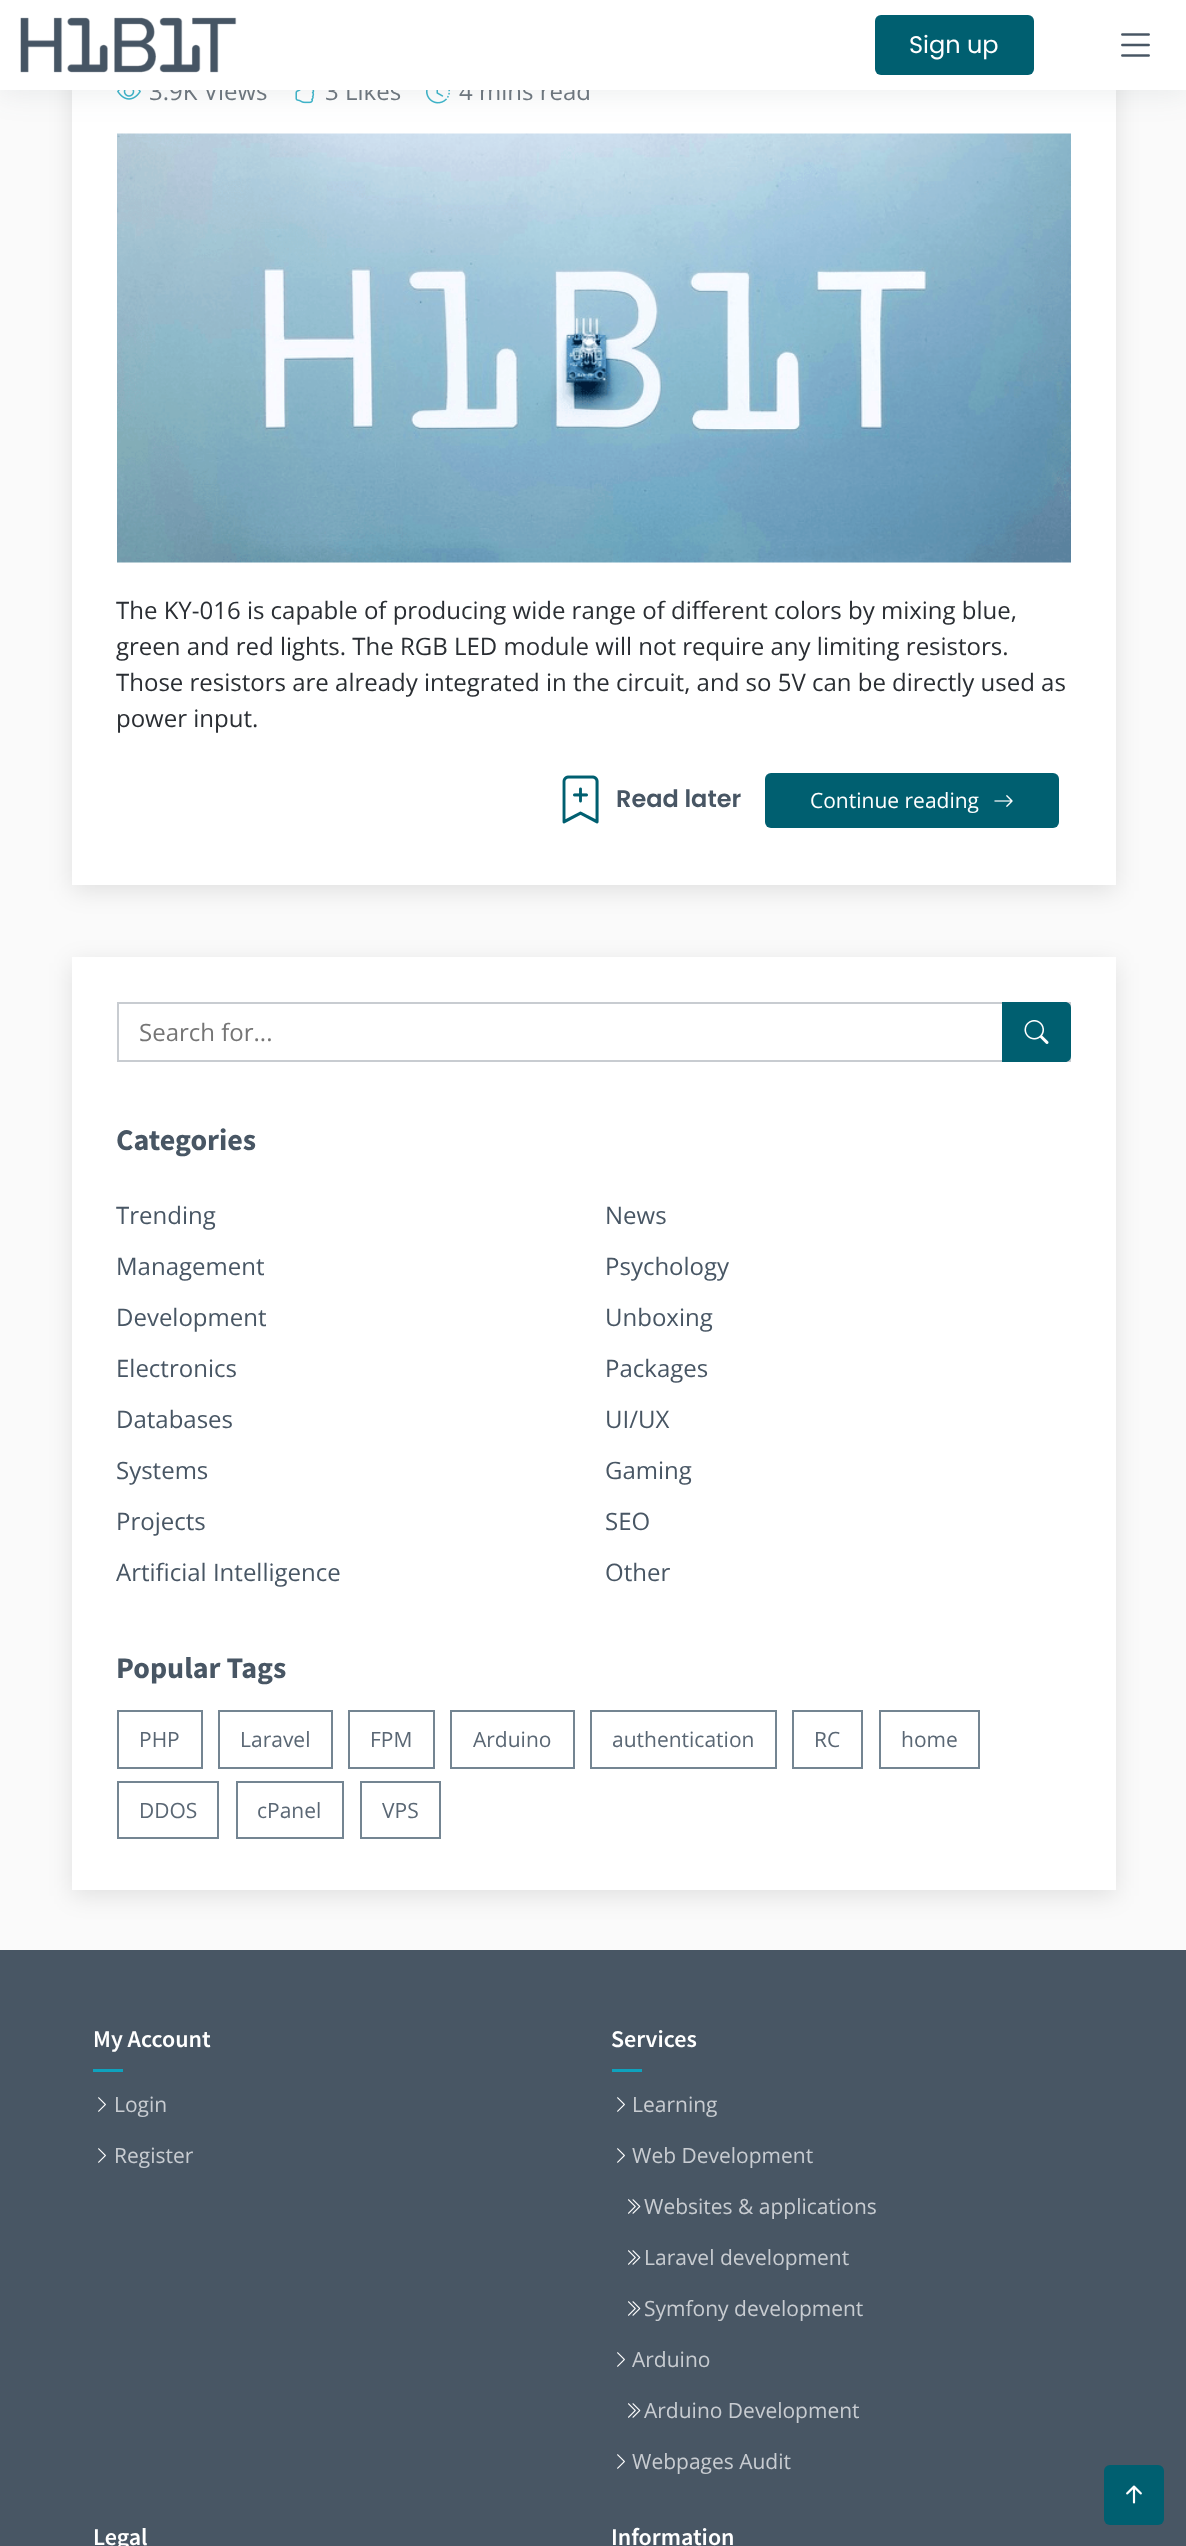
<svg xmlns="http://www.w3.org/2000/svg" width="1186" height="2546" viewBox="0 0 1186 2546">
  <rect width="100%" height="100%" fill="#fafafa"/>
  <path d="M72 -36h1044v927H72z" fill="#0000001a" filter="blur(12px)"/>
  <path d="M72 90h1044v795H72z" fill="#fff"/>
  <image x="117" y="90" width="24" height="10" href="img/3.png"/>
  <image x="295" y="90" width="20" height="14" href="img/4.png"/>
  <image x="426" y="90" width="24" height="14" href="img/5.png"/>
  <image x="117" y="133" width="954" height="430" href="img/6.png"/>
  <path d="M0 3h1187v90H0z" fill="#4856641a" filter="blur(15px)"/>
  <image x="562" y="775" width="37" height="49" href="img/7.png"/>
  <rect x="765" y="773" width="294" height="55" rx="6" fill="#005f70"/>
  <image x="994" y="795" width="19" height="12" href="img/8.png"/>
  <path d="M72 963h1044v933H72z" fill="#0000001a" filter="blur(12px)"/>
  <path d="M72 957h1044v933H72z" fill="#fff"/>
  <path d="M118 1003h952v58H118z" fill="none" stroke="#c8ccd1" stroke-width="2"/>
  <path d="M1002 1002H1065C1068.5 1002 1071 1004.5 1071 1008V1056C1071 1059.5 1068.5 1062 1065 1062H1002Z" fill="#005f70"/>
  <image x="1024" y="1020" width="25" height="24" href="img/9.png"/>
  <path d="M118 1711h84v57H118z" fill="none" stroke="#748592" stroke-width="2"/>
  <path d="M219 1711h113v57H219z" fill="none" stroke="#748592" stroke-width="2"/>
  <path d="M349 1711h85v57H349z" fill="none" stroke="#748592" stroke-width="2"/>
  <path d="M451 1711h123v57H451z" fill="none" stroke="#748592" stroke-width="2"/>
  <path d="M591 1711h185v57H591z" fill="none" stroke="#748592" stroke-width="2"/>
  <path d="M793 1711h69v57H793z" fill="none" stroke="#748592" stroke-width="2"/>
  <path d="M880 1711h99v57H880z" fill="none" stroke="#748592" stroke-width="2"/>
  <path d="M118 1782h100v56H118z" fill="none" stroke="#748592" stroke-width="2"/>
  <path d="M237 1782h106v56H237z" fill="none" stroke="#748592" stroke-width="2"/>
  <path d="M361 1782h79v56H361z" fill="none" stroke="#748592" stroke-width="2"/>
  <path d="M0 1950h1186v596H0z" fill="#485664"/>
  <path d="M93 2069h30v3H93z" fill="#0ea2bd"/>
  <image x="98" y="2097" width="8" height="15" href="img/10.png"/>
  <image x="98" y="2148" width="8" height="15" href="img/10.png"/>
  <path d="M612 2069h30v3H612z" fill="#0ea2bd"/>
  <image x="617" y="2097" width="8" height="15" href="img/10.png"/>
  <image x="617" y="2148" width="8" height="15" href="img/10.png"/>
  <image x="628" y="2199" width="13" height="15" href="img/11.png"/>
  <image x="628" y="2250" width="13" height="15" href="img/11.png"/>
  <image x="628" y="2301" width="13" height="15" href="img/11.png"/>
  <image x="617" y="2352" width="8" height="15" href="img/10.png"/>
  <image x="628" y="2403" width="13" height="15" href="img/11.png"/>
  <image x="617" y="2454" width="8" height="15" href="img/10.png"/>
  <rect x="1104" y="2465" width="60" height="60" rx="6" fill="#005f70"/>
  <image x="1126" y="2485" width="16" height="19" href="img/12.png"/>
  <g font-family="Open Sans" font-size="24" fill="#6c757d">
    <text x="149" y="100">3.9K Views</text>
    <text x="325" y="100">3 Likes</text>
    <text x="459" y="100">4 mins read</text>
  </g>
  <path d="M0 0h1186v90H0z" fill="#fff"/>
  <image x="1121" y="33" width="29" height="24" href="img/2.png"/>
  <rect x="875" y="15" width="159" height="60" rx="6" fill="#005f70"/>
  <text x="909" y="53" font-family="Poppins" font-size="24" fill="#fff">Sign up</text>
  <image x="20" y="17" width="217" height="56" href="img/1.png"/>
  <g font-family="Open Sans" font-size="24" fill="#2a2e33">
    <text x="116" y="619">The KY-016 is capable of producing wide range of different colors by mixing blue,</text>
    <text x="116" y="655">green and red lights. The RGB LED module will not require any limiting resistors.</text>
    <text x="116" y="691">Those resistors are already integrated in the circuit, and so 5V can be directly used as</text>
    <text x="116" y="727">power input.</text>
  </g>
  <text x="616" y="807" font-family="Poppins" font-size="24" font-weight="600" fill="#485664">Read later</text>
  <text x="810" y="808" font-family="Open Sans" font-size="21" fill="#fff">Continue reading</text>
  <text x="139" y="1041" font-family="Open Sans" font-size="24" fill="#757575">Search for...</text>
  <text x="116" y="1150" font-family="Source Sans Pro" font-size="30" font-weight="bold" fill="#485664">Categories</text>
  <g font-family="Open Sans" font-size="24" fill="#485664">
    <text x="116" y="1224">Trending</text>
    <text x="605" y="1224">News</text>
    <text x="116" y="1275">Management</text>
    <text x="605" y="1275">Psychology</text>
    <text x="116" y="1326">Development</text>
    <text x="605" y="1326">Unboxing</text>
    <text x="116" y="1377">Electronics</text>
    <text x="605" y="1377">Packages</text>
    <text x="116" y="1428">Databases</text>
    <text x="605" y="1428">UI/UX</text>
    <text x="116" y="1479">Systems</text>
    <text x="605" y="1479">Gaming</text>
    <text x="116" y="1530">Projects</text>
    <text x="605" y="1530">SEO</text>
    <text x="116" y="1581">Artificial Intelligence</text>
    <text x="605" y="1581">Other</text>
  </g>
  <text x="116" y="1678" font-family="Source Sans Pro" font-size="30" font-weight="bold" fill="#485664">Popular Tags</text>
  <g font-family="Open Sans" font-size="21" fill="#5a6774">
    <text x="139" y="1747">PHP</text>
    <text x="240" y="1747">Laravel</text>
    <text x="370" y="1747">FPM</text>
    <text x="473" y="1747">Arduino</text>
    <text x="612" y="1747">authentication</text>
    <text x="814" y="1747">RC</text>
    <text x="901" y="1747">home</text>
    <text x="139" y="1818">DDOS</text>
    <text x="257" y="1818">cPanel</text>
    <text x="382" y="1818">VPS</text>
  </g>
  <text x="93" y="2047" font-family="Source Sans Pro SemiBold" font-size="24" font-weight="600" fill="#fff">My Account</text>
  <g font-family="Open Sans" font-size="21" fill="#c8ccd1">
    <text x="114" y="2112">Login</text>
    <text x="114" y="2163">Register</text>
  </g>
  <text x="611" y="2047" font-family="Source Sans Pro SemiBold" font-size="24" font-weight="600" fill="#fff">Services</text>
  <g font-family="Open Sans" font-size="21" fill="#c8ccd1">
    <text x="632" y="2112">Learning</text>
    <text x="632" y="2163">Web Development</text>
    <text x="644" y="2214">Websites &amp; applications</text>
    <text x="644" y="2265">Laravel development</text>
    <text x="644" y="2316">Symfony development</text>
    <text x="632" y="2367">Arduino</text>
    <text x="644" y="2418">Arduino Development</text>
    <text x="632" y="2469">Webpages Audit</text>
  </g>
  <g font-family="Source Sans Pro SemiBold" font-size="24" font-weight="600" fill="#fff">
    <text x="93" y="2545">Legal</text>
    <text x="611" y="2545">Information</text>
  </g>
</svg>
